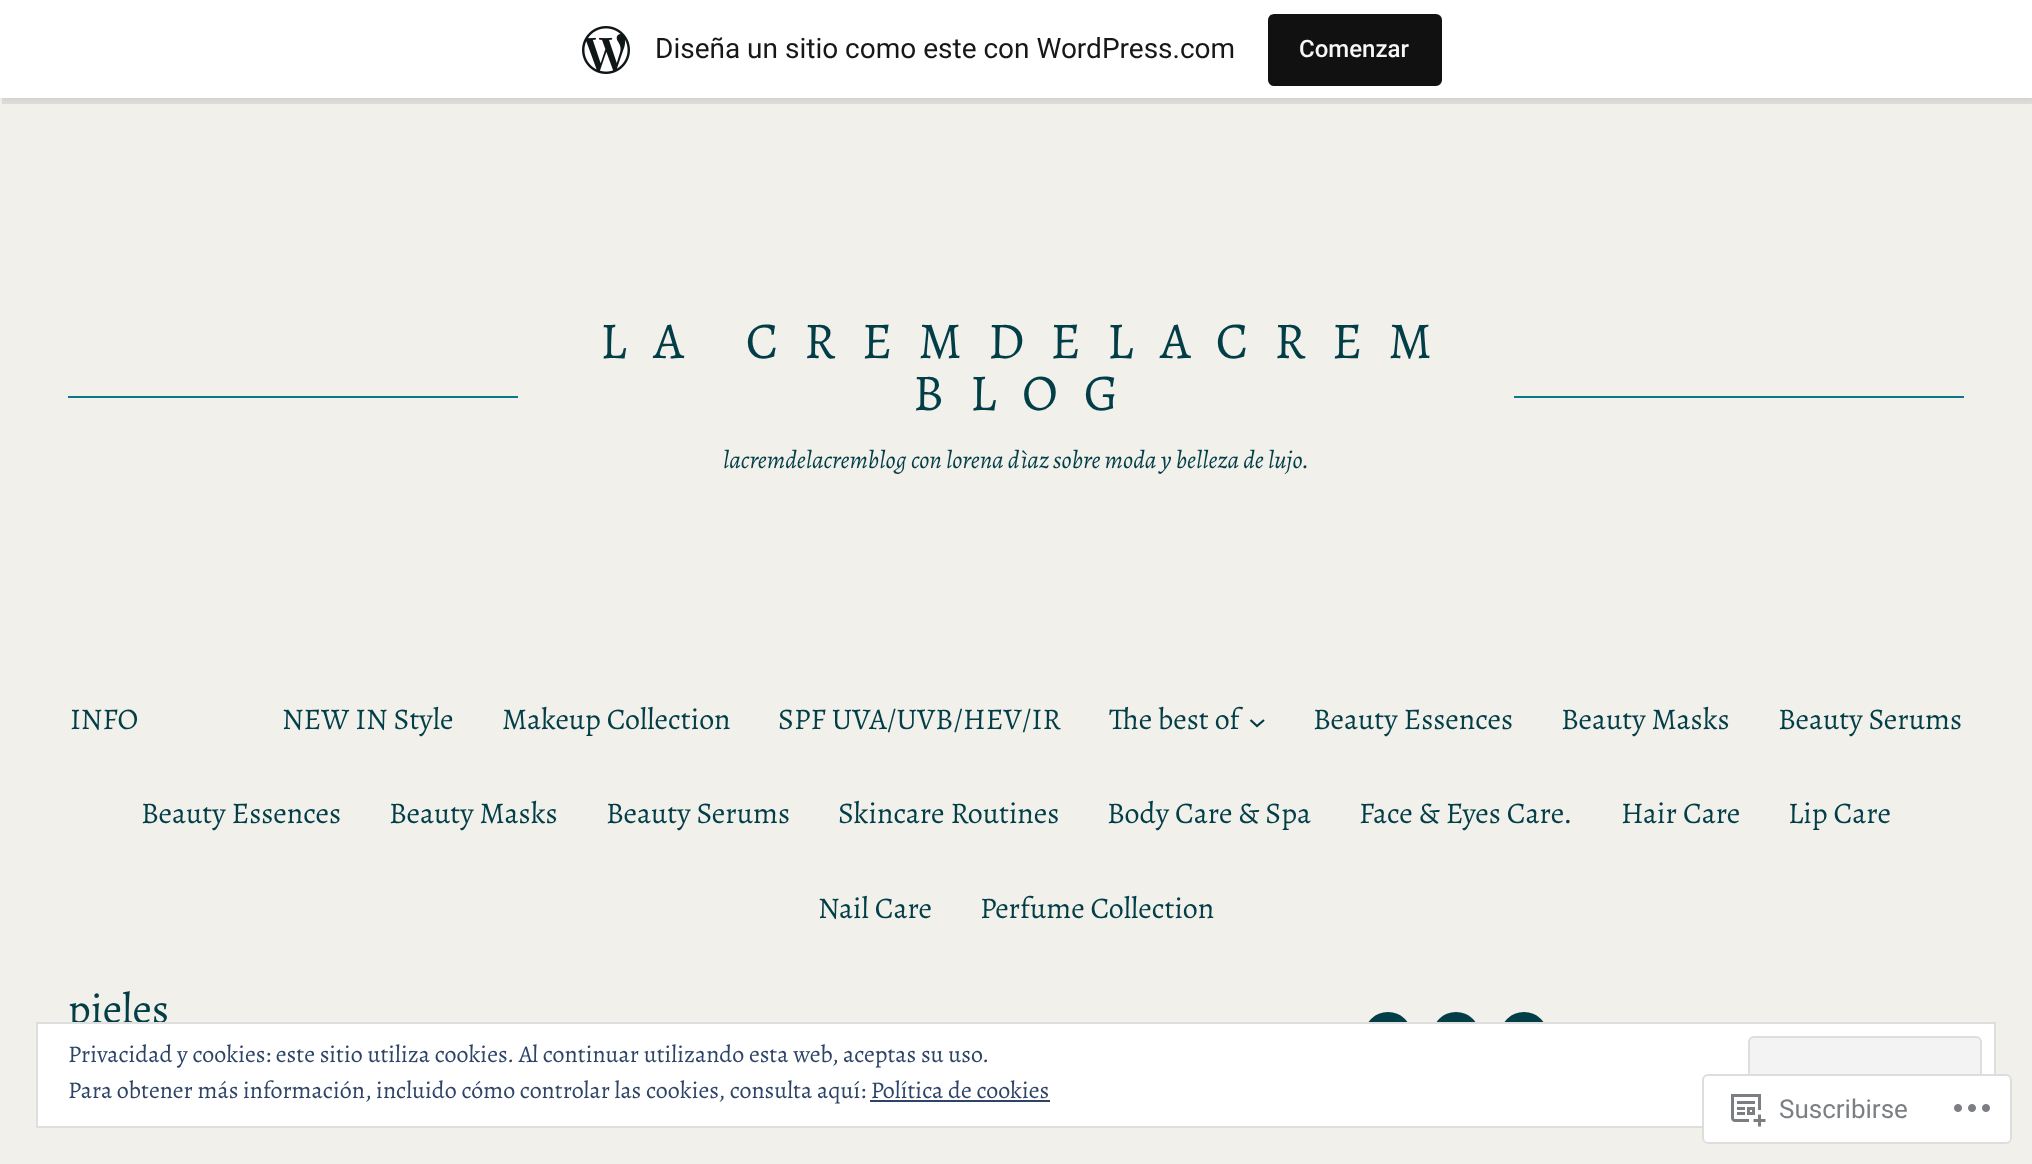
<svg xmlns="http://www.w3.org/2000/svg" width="2032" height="1164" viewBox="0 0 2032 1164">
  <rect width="100%" height="100%" fill="#f2f0ea"/>
  <path d="M0 2h2032v98H0z" fill="#0000000d" filter="blur(2px)"/>
  <path d="M2 98V104H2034V6H2032V98Z" fill="#00000014"/>
  <path d="M0 0h2032v98H0z" fill="#fff"/>
  <image x="582" y="26" width="48" height="48" href="img/1.png"/>
  <rect x="1268" y="14" width="174" height="72" rx="6" fill="#111"/>
  <path d="M68 396h450v2H68z" fill="#097889"/>
  <path d="M1514 396h450v2H1514z" fill="#097889"/>
  <path d="M1250.5 720L1257 726L1264 720" fill="none" stroke="#023e47" stroke-width="2.2"/>
  <circle cx="1388" cy="1036" r="24" fill="#023e47"/>
  <circle cx="1456" cy="1036" r="24" fill="#023e47"/>
  <circle cx="1524" cy="1036" r="24" fill="#023e47"/>
  <text x="655" y="58" font-family="Roboto" font-size="28" fill="#171717">Diseña un sitio como este con WordPress.com</text>
  <text x="1299" y="57" font-family="Roboto" font-size="24" font-weight="500" fill="#f6f7f7">Comenzar</text>
  <g font-family="Alegreya" font-size="51.8" letter-spacing="25.9" fill="#023e47">
    <text x="600" y="358">LA CREMDELACREM</text>
    <text x="913" y="410">BLOG</text>
  </g>
  <text x="723" y="468" font-family="Alegreya" font-size="25" font-style="italic" fill="#023e47">lacremdelacremblog con lorena dìaz sobre moda y belleza de lujo.</text>
  <g font-family="Alegreya" font-size="30" fill="#023e47">
    <text x="70" y="729">INFO</text>
    <text x="282" y="729">NEW IN Style</text>
    <text x="502" y="729">Makeup Collection</text>
    <text x="778" y="729">SPF UVA/UVB/HEV/IR</text>
    <text x="1109" y="729">The best of</text>
    <text x="1313" y="729">Beauty Essences</text>
    <text x="1561" y="729">Beauty Masks</text>
    <text x="1778" y="729">Beauty Serums</text>
    <text x="141" y="823">Beauty Essences</text>
    <text x="389" y="823">Beauty Masks</text>
    <text x="606" y="823">Beauty Serums</text>
    <text x="838" y="823">Skincare Routines</text>
    <text x="1107" y="823">Body Care &amp; Spa</text>
    <text x="1359" y="823">Face &amp; Eyes Care.</text>
    <text x="1621" y="823">Hair Care</text>
    <text x="1788" y="823">Lip Care</text>
    <text x="818" y="918">Nail Care</text>
    <text x="980" y="918">Perfume Collection</text>
  </g>
  <text x="68" y="1023" font-family="Alegreya" font-size="43" fill="#023e47">pieles</text>
  <path d="M37 1023h1958v104H37z" fill="#fff" stroke="#dedede" stroke-width="2"/>
  <text x="68" y="1062" font-family="Alegreya" font-size="24" fill="#2e4467">Privacidad y cookies: este sitio utiliza cookies. Al continuar utilizando esta web, aceptas su uso.</text>
  <rect x="1749" y="1037" width="232" height="76" rx="5" fill="#f3f3f3" stroke="#dedede" stroke-width="2"/>
  <text x="68" y="1098" font-family="Alegreya" font-size="24" fill="#2e4467">Para obtener más información, incluido cómo controlar las cookies, consulta aquí: Política de cookies</text>
  <path d="M870 1100h180v2H870z" fill="#2e4467"/>
  <rect x="1702" y="1074" width="310" height="70" rx="6" fill="#fffffffa"/>
  <rect x="1703" y="1075" width="308" height="68" rx="5" fill="none" stroke="#dcdcdefa" stroke-width="2"/>
  <image x="1731" y="1094" width="35" height="33" href="img/2.png"/>
  <text x="1779" y="1118" font-family="Roboto" font-size="26" fill="#7b7f84">Suscribirse</text>
  <image x="1954" y="1104" width="36" height="8" href="img/3.png"/>
</svg>
